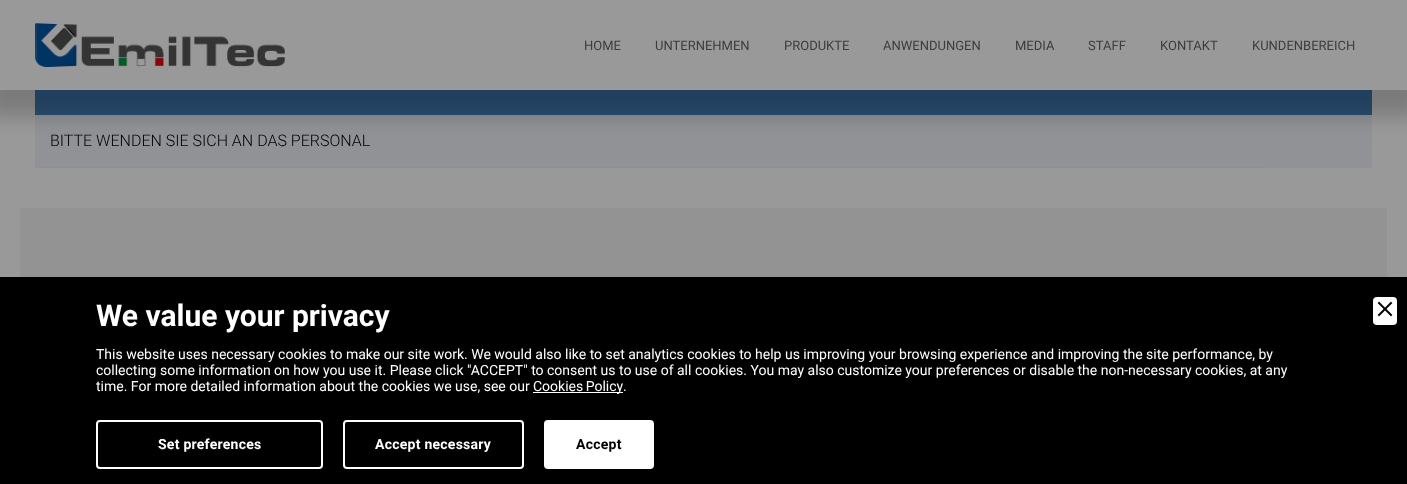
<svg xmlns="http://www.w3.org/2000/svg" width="1407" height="484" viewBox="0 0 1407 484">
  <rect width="100%" height="100%" fill="#999"/>
  <path d="M35 90h1337v25H35z" fill="#2b5075"/>
  <path d="M35 115h1337v53H35z" fill="#909295"/>
  <path d="M-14 -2h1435v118H-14z" fill="#00000033" filter="blur(10px)"/>
  <path d="M0 0h1407v90H0z" fill="#999"/>
  <image x="35" y="23" width="250" height="44" href="img/1.png"/>
  <path d="M35 167h1232v1H35z" fill="#8f8f8f"/>
  <path d="M20 208h1367v69H20z" fill="#939393"/>
  <path d="M0 277h1407v207H0z" fill="#000"/>
  <rect x="1373" y="297" width="24" height="28" rx="4" fill="#fff"/>
  <image x="1377" y="301" width="16" height="16" href="img/2.png"/>
  <path d="M533 392h90v1H533z" fill="#fff"/>
  <rect x="97" y="421" width="225" height="47" rx="3" fill="none" stroke="#fff" stroke-width="2"/>
  <rect x="344" y="421" width="179" height="47" rx="3" fill="none" stroke="#fff" stroke-width="2"/>
  <rect x="545" y="421" width="108" height="47" rx="3" fill="#fff" stroke="#fff" stroke-width="2"/>
  <g font-family="Roboto" font-size="13" fill="#3d3d3d">
    <text x="584" y="50">HOME</text>
    <text x="655" y="50">UNTERNEHMEN</text>
    <text x="784" y="50">PRODUKTE</text>
    <text x="883" y="50">ANWENDUNGEN</text>
    <text x="1015" y="50">MEDIA</text>
    <text x="1088" y="50">STAFF</text>
    <text x="1160" y="50">KONTAKT</text>
    <text x="1252" y="50">KUNDENBEREICH</text>
  </g>
  <text x="50" y="146" font-family="Roboto" font-size="16" font-weight="300" fill="#000">BITTE WENDEN SIE SICH AN DAS PERSONAL</text>
  <text x="96" y="326" font-family="Roboto" font-size="30" font-weight="bold" fill="#fff">We value your privacy</text>
  <g font-family="Roboto" font-size="14" fill="#fff">
    <text x="96" y="359">This website uses necessary cookies to make our site work. We would also like to set analytics cookies to help us improving your browsing experience and improving the site performance, by</text>
    <text x="96" y="375">collecting some information on how you use it. Please click "ACCEPT" to consent us to use of all cookies. You may also customize your preferences or disable the non-necessary cookies, at any</text>
    <text x="96" y="391">time. For more detailed information about the cookies we use, see our</text>
    <text x="533" y="391" word-spacing="-1">Cookies Policy</text>
    <text x="623" y="391">.</text>
  </g>
  <g font-family="Roboto" font-size="14" font-weight="bold" letter-spacing="0.25" fill="#fff">
    <text x="158" y="449">Set preferences</text>
    <text x="375" y="449">Accept necessary</text>
  </g>
  <text x="576" y="449" font-family="Roboto" font-size="14" font-weight="bold" letter-spacing="0.25" fill="#000">Accept</text>
</svg>
